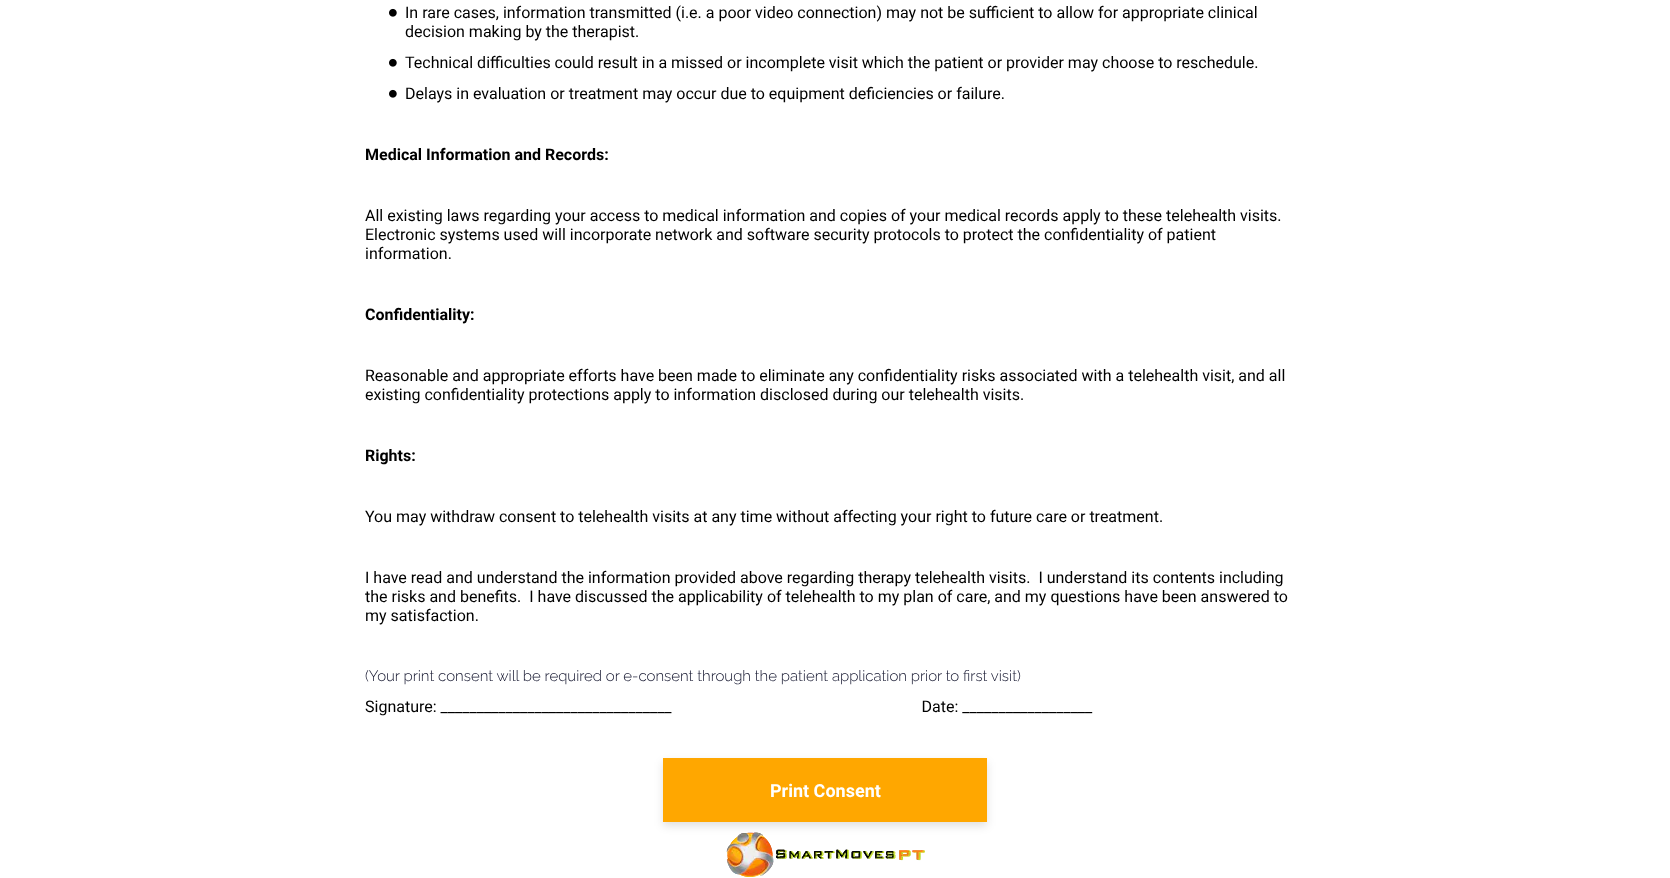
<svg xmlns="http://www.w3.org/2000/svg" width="1670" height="878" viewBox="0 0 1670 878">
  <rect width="100%" height="100%" fill="#fff"/>
  <image x="389" y="8" width="8" height="9" href="img/1.png"/>
  <image x="389" y="58" width="8" height="9" href="img/1.png"/>
  <image x="389" y="89" width="8" height="9" href="img/1.png"/>
  <path d="M663 762h324v64H663z" fill="#0000001f" filter="blur(4px)"/>
  <path d="M663 758h324v64H663z" fill="#ffa700"/>
  <image x="726" y="832" width="199" height="45" href="img/2.png"/>
  <image x="726" y="832" width="199" height="45" href="img/3.png"/>
  <image x="726" y="832" width="199" height="45" href="img/4.png"/>
  <g font-family="Roboto" font-size="16" fill="#000">
    <text x="405" y="18">In rare cases, information transmitted (i.e. a poor video connection) may not be sufficient to allow for appropriate clinical</text>
    <text x="405" y="37">decision making by the therapist.</text>
    <text x="405" y="68">Technical difficulties could result in a missed or incomplete visit which the patient or provider may choose to reschedule.</text>
    <text x="405" y="99">Delays in evaluation or treatment may occur due to equipment deficiencies or failure.</text>
  </g>
  <text x="365" y="160" font-family="Roboto" font-size="16" font-weight="bold" fill="#000">Medical Information and Records:</text>
  <g font-family="Roboto" font-size="16" fill="#000">
    <text x="365" y="221">All existing laws regarding your access to medical information and copies of your medical records apply to these telehealth visits.</text>
    <text x="365" y="240">Electronic systems used will incorporate network and software security protocols to protect the confidentiality of patient</text>
    <text x="365" y="259">information.</text>
  </g>
  <text x="365" y="320" font-family="Roboto" font-size="16" font-weight="bold" fill="#000">Confidentiality:</text>
  <g font-family="Roboto" font-size="16" fill="#000">
    <text x="365" y="381">Reasonable and appropriate efforts have been made to eliminate any confidentiality risks associated with a telehealth visit, and all</text>
    <text x="365" y="400">existing confidentiality protections apply to information disclosed during our telehealth visits.</text>
  </g>
  <text x="365" y="461" font-family="Roboto" font-size="16" font-weight="bold" fill="#000">Rights:</text>
  <g font-family="Roboto" font-size="16" fill="#000">
    <text x="365" y="522">You may withdraw consent to telehealth visits at any time without affecting your right to future care or treatment.</text>
    <text x="365" y="583" xml:space="preserve">I have read and understand the information provided above regarding therapy telehealth visits.  I understand its contents including</text>
    <text x="365" y="602" xml:space="preserve">the risks and benefits.  I have discussed the applicability of telehealth to my plan of care, and my questions have been answered to</text>
    <text x="365" y="621">my satisfaction.</text>
  </g>
  <text x="365" y="681" font-family="Raleway" font-size="15" font-weight="100" fill="#11132c">(Your print consent will be required or e-consent through the patient application prior to first visit)</text>
  <text x="365" y="712" font-family="Roboto" font-size="16" fill="#000" xml:space="preserve">Signature: ________________________________                                                               Date: __________________</text>
  <text x="770" y="797" font-family="Roboto" font-size="18" font-weight="bold" fill="#fff">Print Consent</text>
</svg>
